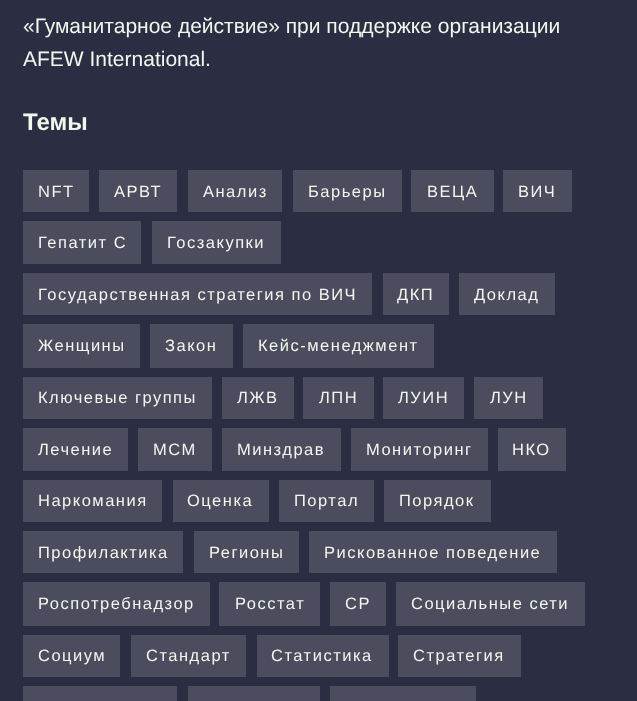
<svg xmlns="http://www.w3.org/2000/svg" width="637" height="701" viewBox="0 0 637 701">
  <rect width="100%" height="100%" fill="#2b2d42"/>
  <path d="M23 170h66v42H23z" fill="#4b4d5e"/>
  <path d="M99 170h78v42H99z" fill="#4b4d5e"/>
  <path d="M188 170h94v42H188z" fill="#4b4d5e"/>
  <path d="M293 170h109v42H293z" fill="#4b4d5e"/>
  <path d="M411 170h83v42H411z" fill="#4b4d5e"/>
  <path d="M503 170h69v42H503z" fill="#4b4d5e"/>
  <path d="M23 221h118v43H23z" fill="#4b4d5e"/>
  <path d="M152 221h129v43H152z" fill="#4b4d5e"/>
  <path d="M23 273h349v42H23z" fill="#4b4d5e"/>
  <path d="M383 273h66v42H383z" fill="#4b4d5e"/>
  <path d="M459 273h96v42H459z" fill="#4b4d5e"/>
  <path d="M23 324h117v44H23z" fill="#4b4d5e"/>
  <path d="M150 324h83v44H150z" fill="#4b4d5e"/>
  <path d="M243 324h191v44H243z" fill="#4b4d5e"/>
  <path d="M23 377h189v42H23z" fill="#4b4d5e"/>
  <path d="M222 377h72v42H222z" fill="#4b4d5e"/>
  <path d="M303 377h71v42H303z" fill="#4b4d5e"/>
  <path d="M383 377h81v42H383z" fill="#4b4d5e"/>
  <path d="M474 377h69v42H474z" fill="#4b4d5e"/>
  <path d="M23 428h105v43H23z" fill="#4b4d5e"/>
  <path d="M138 428h74v43H138z" fill="#4b4d5e"/>
  <path d="M222 428h119v43H222z" fill="#4b4d5e"/>
  <path d="M351 428h137v43H351z" fill="#4b4d5e"/>
  <path d="M498 428h68v43H498z" fill="#4b4d5e"/>
  <path d="M23 480h139v42H23z" fill="#4b4d5e"/>
  <path d="M173 480h96v42H173z" fill="#4b4d5e"/>
  <path d="M279 480h95v42H279z" fill="#4b4d5e"/>
  <path d="M384 480h107v42H384z" fill="#4b4d5e"/>
  <path d="M23 531h160v42H23z" fill="#4b4d5e"/>
  <path d="M194 531h105v42H194z" fill="#4b4d5e"/>
  <path d="M309 531h248v42H309z" fill="#4b4d5e"/>
  <path d="M23 582h187v44H23z" fill="#4b4d5e"/>
  <path d="M219 582h101v44H219z" fill="#4b4d5e"/>
  <path d="M330 582h56v44H330z" fill="#4b4d5e"/>
  <path d="M396 582h189v44H396z" fill="#4b4d5e"/>
  <path d="M23 635h97v42H23z" fill="#4b4d5e"/>
  <path d="M131 635h115v42H131z" fill="#4b4d5e"/>
  <path d="M257 635h132v42H257z" fill="#4b4d5e"/>
  <path d="M398 635h123v42H398z" fill="#4b4d5e"/>
  <path d="M23 686h154v15H23z" fill="#4b4d5e"/>
  <path d="M188 686h132v15H188z" fill="#4b4d5e"/>
  <path d="M330 686h146v15H330z" fill="#4b4d5e"/>
  <g font-family="Liberation Sans" font-size="21" fill="#f1f7ed">
    <text x="23" y="33">«Гуманитарное действие» при поддержке организации</text>
    <text x="23" y="66">AFEW International.</text>
  </g>
  <text x="23" y="130" font-family="Liberation Sans" font-size="24" font-weight="bold" fill="#f1f7ed">Темы</text>
  <g font-family="Liberation Sans" font-size="16.5" letter-spacing="1.5" fill="#f1f7ed">
    <text x="38" y="197">NFT</text>
    <text x="114" y="197">АРВТ</text>
    <text x="203" y="197">Анализ</text>
    <text x="308" y="197">Барьеры</text>
    <text x="427" y="197">ВЕЦА</text>
    <text x="518" y="197">ВИЧ</text>
    <text x="38" y="248">Гепатит С</text>
    <text x="167" y="248">Госзакупки</text>
    <text x="38" y="300">Государственная стратегия по ВИЧ</text>
    <text x="397" y="300">ДКП</text>
    <text x="474" y="300">Доклад</text>
    <text x="38" y="351">Женщины</text>
    <text x="165" y="351">Закон</text>
    <text x="258" y="351">Кейс-менеджмент</text>
    <text x="38" y="403">Ключевые группы</text>
    <text x="237" y="403">ЛЖВ</text>
    <text x="319" y="403">ЛПН</text>
    <text x="398" y="403">ЛУИН</text>
    <text x="490" y="403">ЛУН</text>
    <text x="38" y="455">Лечение</text>
    <text x="153" y="455">МСМ</text>
    <text x="237" y="455">Минздрав</text>
    <text x="366" y="455">Мониторинг</text>
    <text x="512" y="455">НКО</text>
    <text x="38" y="506">Наркомания</text>
    <text x="187" y="506">Оценка</text>
    <text x="294" y="506">Портал</text>
    <text x="399" y="506">Порядок</text>
    <text x="38" y="558">Профилактика</text>
    <text x="209" y="558">Регионы</text>
    <text x="324" y="558">Рискованное поведение</text>
    <text x="38" y="609">Роспотребнадзор</text>
    <text x="235" y="609">Росстат</text>
    <text x="345" y="609">СР</text>
    <text x="411" y="609">Социальные сети</text>
    <text x="38" y="661">Социум</text>
    <text x="146" y="661">Стандарт</text>
    <text x="271" y="661">Статистика</text>
    <text x="413" y="661">Стратегия</text>
  </g>
</svg>
